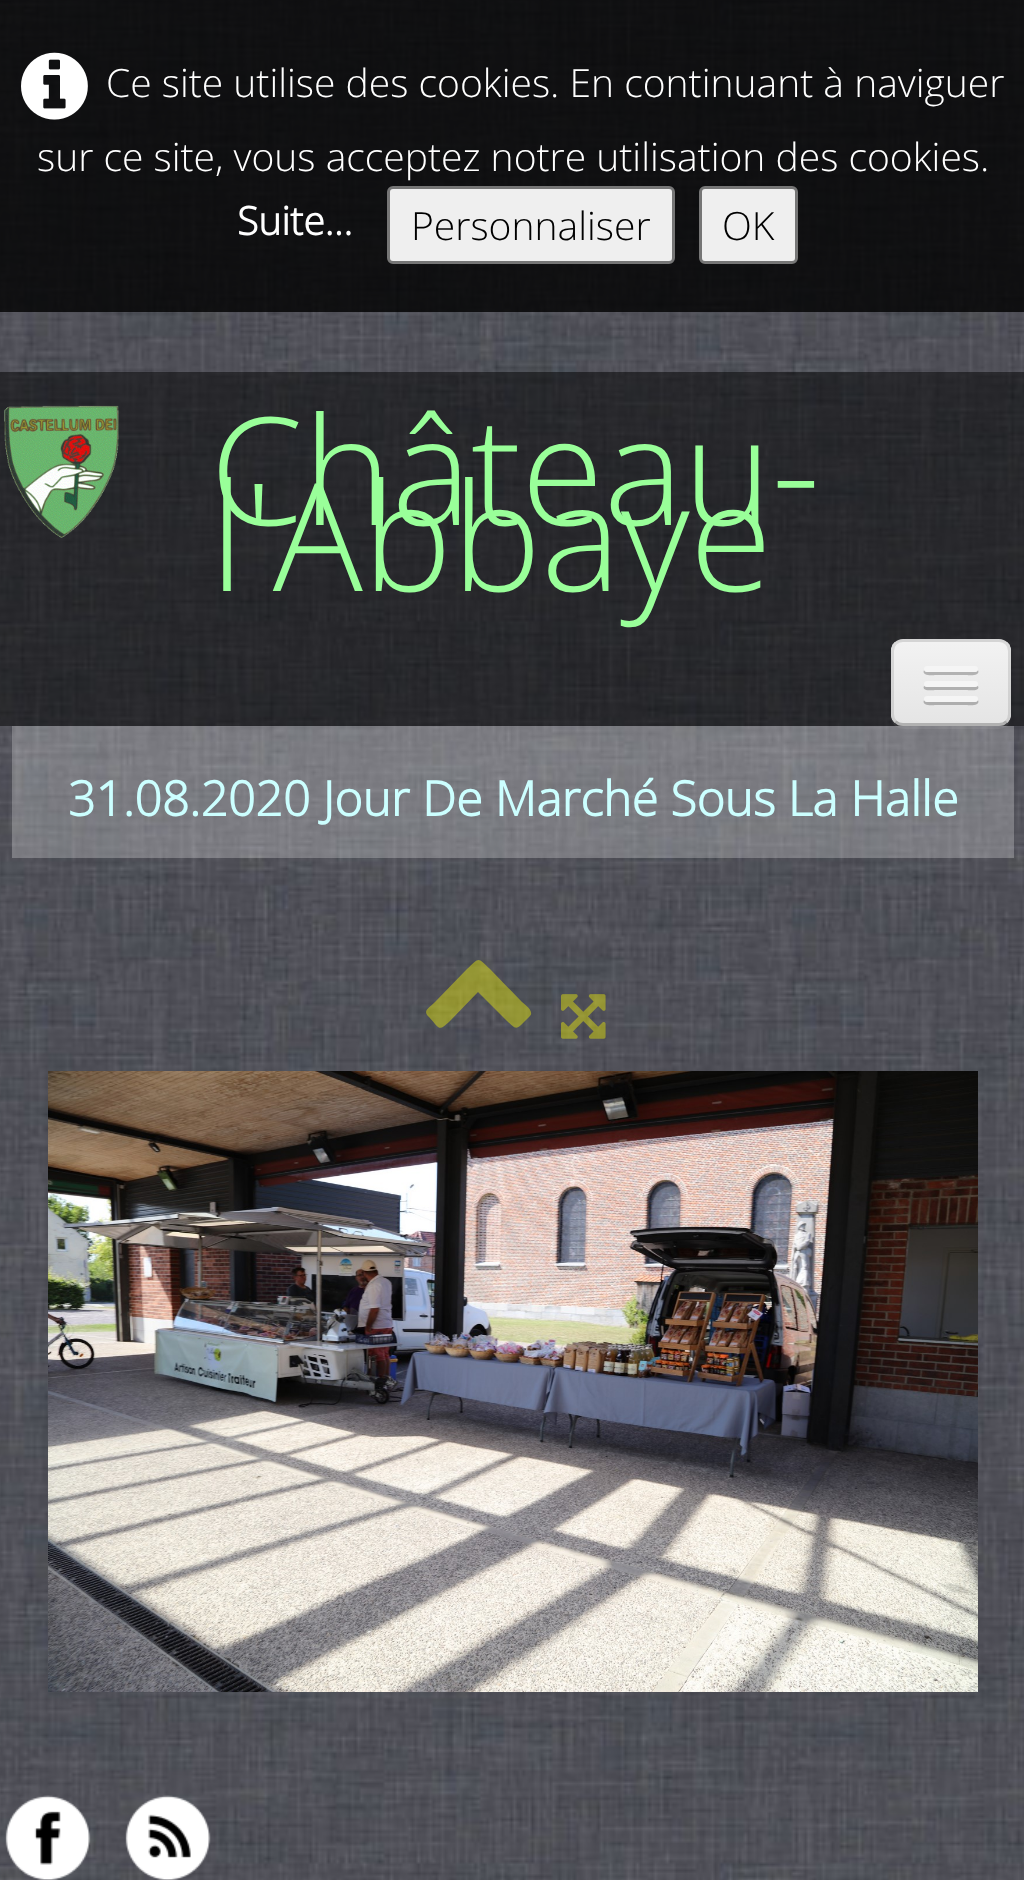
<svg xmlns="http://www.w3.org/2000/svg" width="1024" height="1880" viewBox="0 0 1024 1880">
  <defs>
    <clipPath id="clip1"><rect x="891" y="639" width="120" height="87" rx="12"/></clipPath>
    <linearGradient id="g1" gradientUnits="userSpaceOnUse" x1="951" y1="642" x2="951" y2="723"><stop offset="0" stop-color="#f2f2f2"/><stop offset="1" stop-color="#e5e5e5"/></linearGradient>
  </defs>
  <rect width="100%" height="100%" fill="#fff"/>
  <image x="0" y="0" width="1024" height="1880" href="img/1.png"/>
  <path d="M0 0h1024v312H0z" fill="#000000cc"/>
  <image x="21" y="52" width="67" height="68" href="img/2.png"/>
  <rect x="388.5" y="187.5" width="285" height="75" rx="4.5" fill="#efefef" stroke="#767676" stroke-width="3"/>
  <rect x="700.5" y="187.5" width="96" height="75" rx="4.5" fill="#efefef" stroke="#767676" stroke-width="3"/>
  <path d="M0 372h1024v354H0z" fill="#00000080"/>
  <image x="4" y="405" width="115" height="133" href="img/3.png"/>
  <path d="M12 726h1002v132H12z" fill="#ffffff40"/>
  <path d="M891 714C891 732 905 729 919 729H983C997 729 1011 732 1011 714C1011 721 1006 726 999 726H903C896 726 891 721 891 714Z" fill="#ffffff12"/>
  <rect x="891" y="639" width="120" height="87" rx="12" fill="#ededed"/>
  <g clip-path="url(#clip1)">
    <path d="M891 642h120v81H891z" fill="url(#g1)"/>
  </g>
  <path d="M1006.5 721.5C1004.5 723.5 1002 724.5 999 724.5H903C900 724.5 897.5 723.5 895.5 721.5" fill="none" stroke="#00000040" stroke-width="3"/>
  <path d="M895.5 721.5C893.5 719.5 892.5 717 892.5 714V651C892.5 648 893.5 645.5 895.5 643.5C897.5 641.5 900 640.5 903 640.5H999C1002 640.5 1004.5 641.5 1006.5 643.5C1008.5 645.5 1009.5 648 1009.5 651V714C1009.5 717 1008.5 719.5 1006.5 721.5" fill="none" stroke="#0000001a" stroke-width="3"/>
  <path d="M924 670C921 677 935 675 935 675H967C967 675 981 677 978 670C977 671 976 672 975 672H927C926 672 925 671 924 670Z" fill="#b2b2b2"/>
  <rect x="924" y="666" width="54" height="6" rx="3" fill="#f5f5f5"/>
  <path d="M924 686C921 692 935 690 935 690H967C967 690 981 692 978 686C977 686 976 687 975 687H927C926 687 925 686 924 686Z" fill="#b0b0b0"/>
  <rect x="924" y="681" width="54" height="6" rx="3" fill="#f5f5f5"/>
  <path d="M924 700C921 707 935 705 935 705H967C967 705 981 707 978 700C977 701 976 702 975 702H927C926 702 925 701 924 700Z" fill="#aeaeae"/>
  <rect x="924" y="696" width="54" height="6" rx="3" fill="#f5f5f5"/>
  <path d="M530 1016L521 1025C515 1031 513 1026 507 1021L478 992L450 1021C438 1032 440 1029 429 1017C422 1011 429 1008 435 1002L467 969C480 957 477 957 490 969L522 1002C523 1003 535 1011 530 1016Z" fill="#ffff0066"/>
  <image x="561" y="994" width="45" height="45" href="img/4.png"/>
  <image x="48" y="1071" width="930" height="621" href="img/5.png"/>
  <image x="5" y="1795" width="86" height="85" href="img/6.png"/>
  <image x="125" y="1795" width="86" height="85" href="img/7.png"/>
  <g font-family="Open Sans" font-size="39" font-weight="300" fill="#fff">
    <text x="106" y="97">Ce site utilise des cookies. En continuant à naviguer</text>
    <text x="37" y="171">sur ce site, vous acceptez notre utilisation des cookies.</text>
  </g>
  <text x="237" y="235" font-family="Open Sans" font-size="39" font-weight="bold" fill="#fff">Suite...</text>
  <g font-family="Open Sans" font-size="39" font-weight="300" fill="#000">
    <text x="411" y="240">Personnaliser</text>
    <text x="722" y="240">OK</text>
  </g>
  <g font-family="Open Sans" font-size="150" font-weight="300" fill="#9f9">
    <text x="210" y="525">Château-</text>
    <text x="210" y="591">l'Abbaye</text>
  </g>
  <text x="68" y="816" font-family="Open Sans" font-size="48" font-weight="bold" fill="#cff">31.08.2020 Jour De Marché Sous La Halle</text>
</svg>
